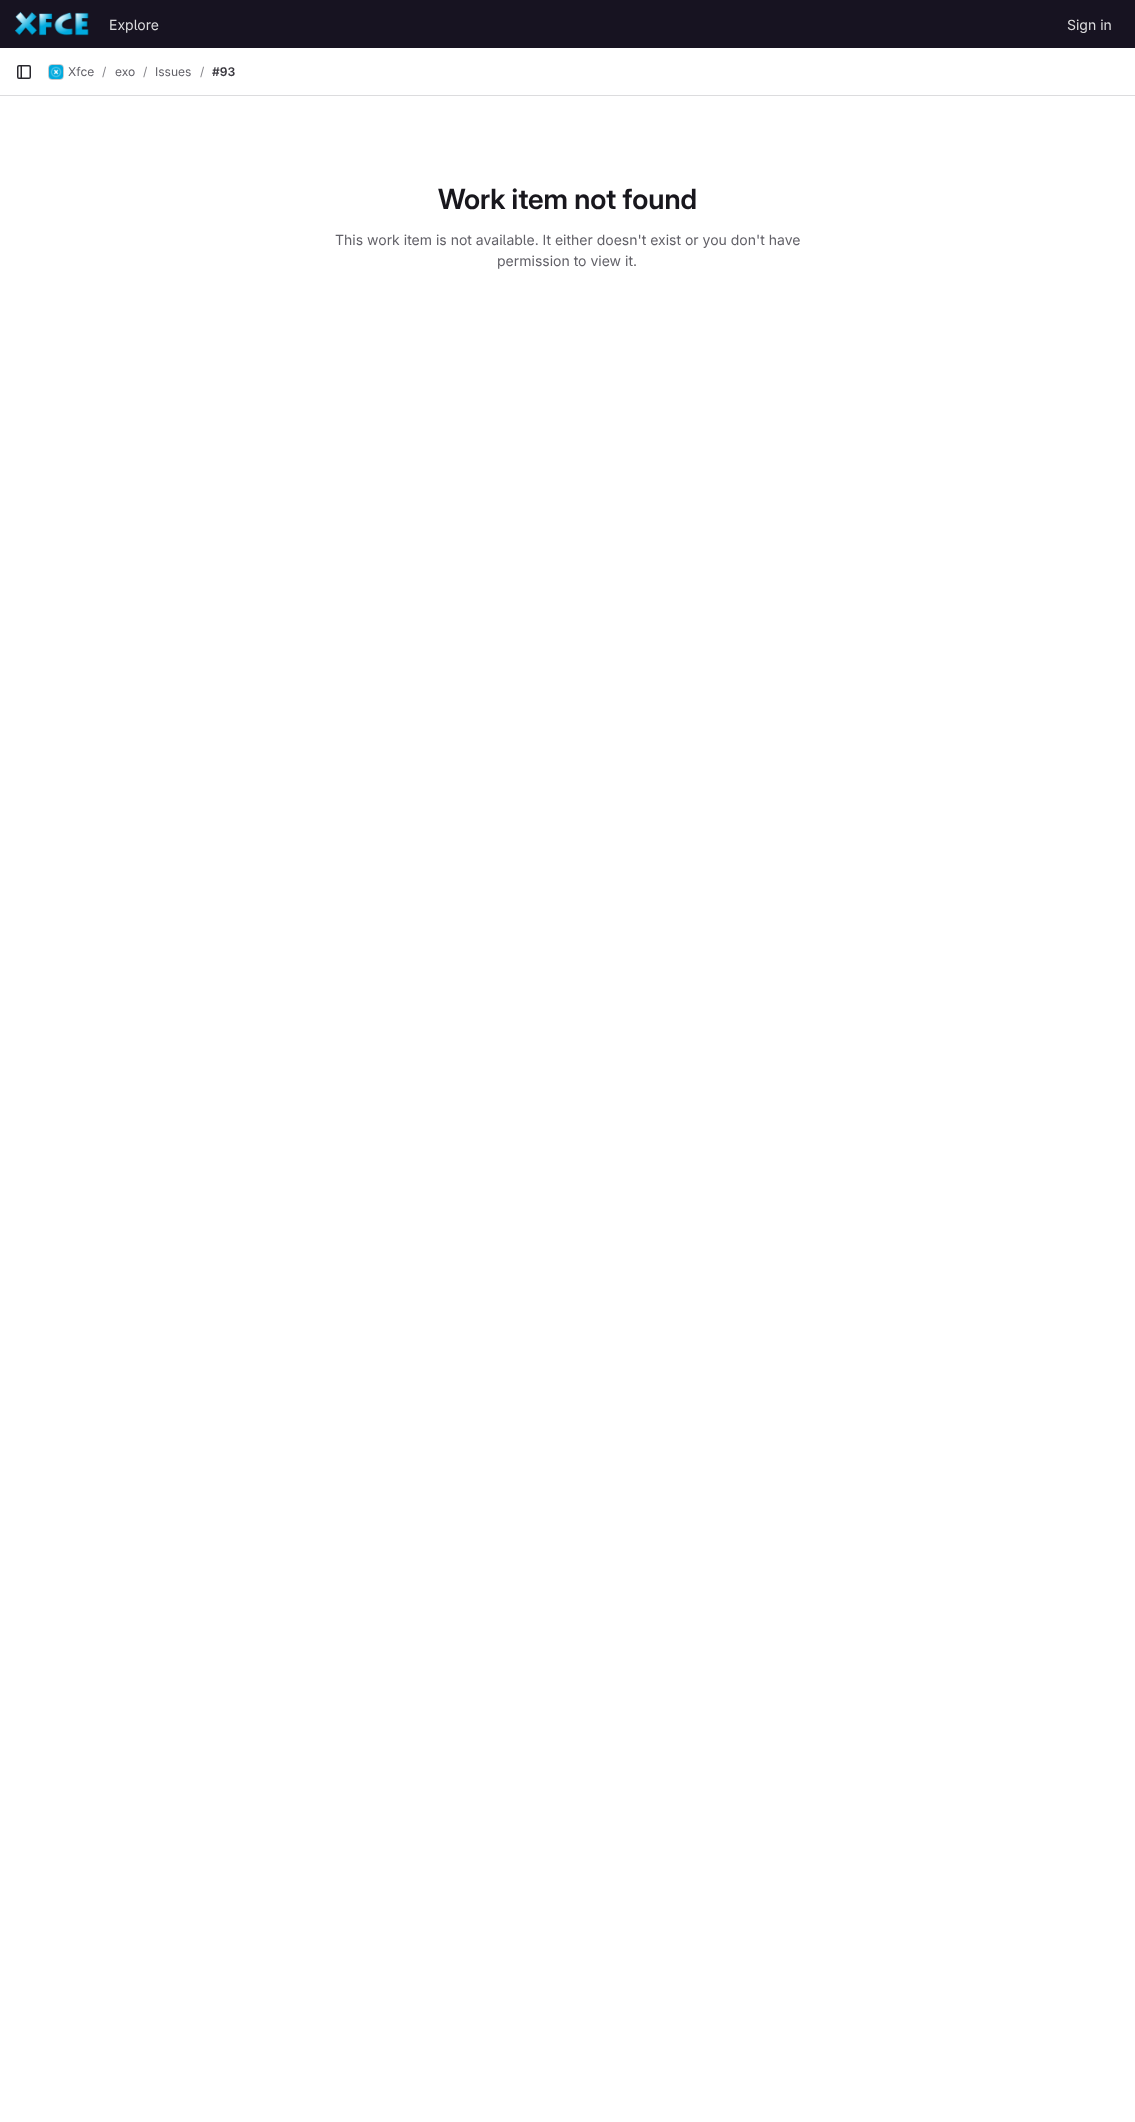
<svg xmlns="http://www.w3.org/2000/svg" width="1135" height="2122" viewBox="0 0 1135 2122">
  <rect width="100%" height="100%" fill="#fff"/>
  <path d="M0 0h1135v48H0z" fill="#171321"/>
  <image x="15" y="12" width="74" height="24" href="img/1.png"/>
  <path d="M0 95h1135v1H0z" fill="#dcdcde"/>
  <image x="17" y="65" width="14" height="14" href="img/2.png"/>
  <rect x="48.5" y="64.5" width="15" height="15" rx="3.5" fill="none" stroke="#dcdcde"/>
  <image x="49" y="65" width="14" height="14" href="img/3.png"/>
  <rect x="48.5" y="64.5" width="15" height="15" rx="3.5" fill="none" stroke="#05050614"/>
  <g font-family="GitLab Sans" font-size="14" fill="#dcdcde">
    <text x="109" y="30">Explore</text>
    <text x="1067" y="30">Sign in</text>
  </g>
  <text x="68" y="76" font-family="GitLab Sans" font-size="12" fill="#626168">Xfce</text>
  <text x="102" y="76" font-family="GitLab Sans" font-size="12" fill="#89888d">/</text>
  <text x="115" y="76" font-family="GitLab Sans" font-size="12" fill="#626168">exo</text>
  <text x="143" y="76" font-family="GitLab Sans" font-size="12" fill="#89888d">/</text>
  <text x="155" y="76" font-family="GitLab Sans" font-size="12" fill="#626168">Issues</text>
  <text x="200" y="76" font-family="GitLab Sans" font-size="12" fill="#89888d">/</text>
  <text x="212" y="76" font-family="'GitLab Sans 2'" font-size="12" font-weight="600" fill="#3a383f">#93</text>
  <text x="438" y="209" font-family="GitLab Sans" font-size="28" font-weight="600" fill="#18171d">Work item not found</text>
  <g font-family="GitLab Sans" font-size="14" fill="#626168">
    <text x="335" y="245">This work item is not available. It either doesn't exist or you don't have</text>
    <text x="497" y="266">permission to view it.</text>
  </g>
</svg>
